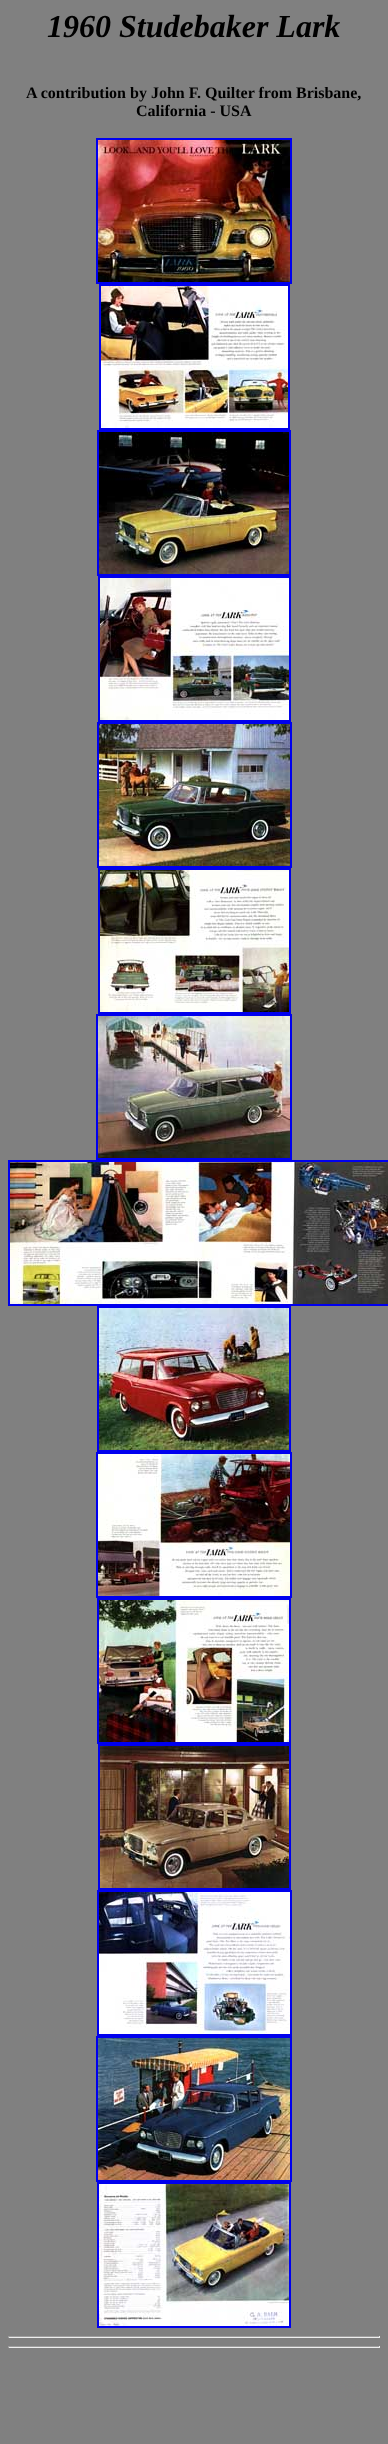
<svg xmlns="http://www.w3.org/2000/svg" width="388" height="2444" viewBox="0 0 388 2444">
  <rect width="100%" height="100%" fill="#808080"/>
  <path d="M97 139h194v144H97z" fill="none" stroke="#00e" stroke-width="2"/>
  <image x="98" y="140" width="192" height="142" href="img/1.png"/>
  <path d="M100 285h189v144H100z" fill="none" stroke="#00e" stroke-width="2"/>
  <image x="101" y="286" width="187" height="142" href="img/2.png"/>
  <path d="M98 431h192v144H98z" fill="none" stroke="#00e" stroke-width="2"/>
  <image x="99" y="432" width="190" height="142" href="img/3.png"/>
  <path d="M99 577h191v144H99z" fill="none" stroke="#00e" stroke-width="2"/>
  <image x="100" y="578" width="189" height="142" href="img/4.png"/>
  <path d="M98 723h193v144H98z" fill="none" stroke="#00e" stroke-width="2"/>
  <image x="99" y="724" width="191" height="142" href="img/5.png"/>
  <path d="M99 869h191v144H99z" fill="none" stroke="#00e" stroke-width="2"/>
  <image x="100" y="870" width="189" height="142" href="img/6.png"/>
  <path d="M97 1015h194v144H97z" fill="none" stroke="#00e" stroke-width="2"/>
  <image x="98" y="1016" width="192" height="142" href="img/7.png"/>
  <path d="M9 1161h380v144H9z" fill="none" stroke="#00e" stroke-width="2"/>
  <image x="10" y="1162" width="378" height="142" href="img/8.png"/>
  <path d="M98 1307h192v144H98z" fill="none" stroke="#00e" stroke-width="2"/>
  <image x="99" y="1308" width="190" height="142" href="img/9.png"/>
  <path d="M97 1453h194v144H97z" fill="none" stroke="#00e" stroke-width="2"/>
  <image x="98" y="1454" width="192" height="142" href="img/10.png"/>
  <path d="M98 1599h192v144H98z" fill="none" stroke="#00e" stroke-width="2"/>
  <image x="99" y="1600" width="190" height="142" href="img/11.png"/>
  <path d="M99 1745h191v144H99z" fill="none" stroke="#00e" stroke-width="2"/>
  <image x="100" y="1746" width="189" height="142" href="img/12.png"/>
  <path d="M98 1891h193v144H98z" fill="none" stroke="#00e" stroke-width="2"/>
  <image x="99" y="1892" width="191" height="142" href="img/13.png"/>
  <path d="M97 2037h194v144H97z" fill="none" stroke="#00e" stroke-width="2"/>
  <image x="98" y="2038" width="192" height="142" href="img/14.png"/>
  <path d="M98 2183h192v144H98z" fill="none" stroke="#00e" stroke-width="2"/>
  <image x="99" y="2184" width="190" height="142" href="img/15.png"/>
  <path d="M8 2336h372v1H8z" fill="#9f9f9f"/>
  <path d="M379 2336h1v2H379z" fill="#eee"/>
  <path d="M8 2337h372v1H8z" fill="#eee"/>
  <path d="M8 2336h1v2H8z" fill="#9f9f9f"/>
  <path d="M8 2346h372v1H8z" fill="#9f9f9f"/>
  <path d="M379 2346h1v2H379z" fill="#eee"/>
  <path d="M8 2347h372v1H8z" fill="#eee"/>
  <path d="M8 2346h1v2H8z" fill="#9f9f9f"/>
  <text x="47" y="37" font-family="Liberation Serif" font-size="32" font-weight="bold" font-style="italic" fill="#000">1960 Studebaker Lark</text>
  <g font-family="Liberation Serif" font-size="16" font-weight="bold" fill="#000">
    <text x="26" y="98">A contribution by John F. Quilter from Brisbane,</text>
    <text x="136" y="116">California - USA</text>
  </g>
</svg>
